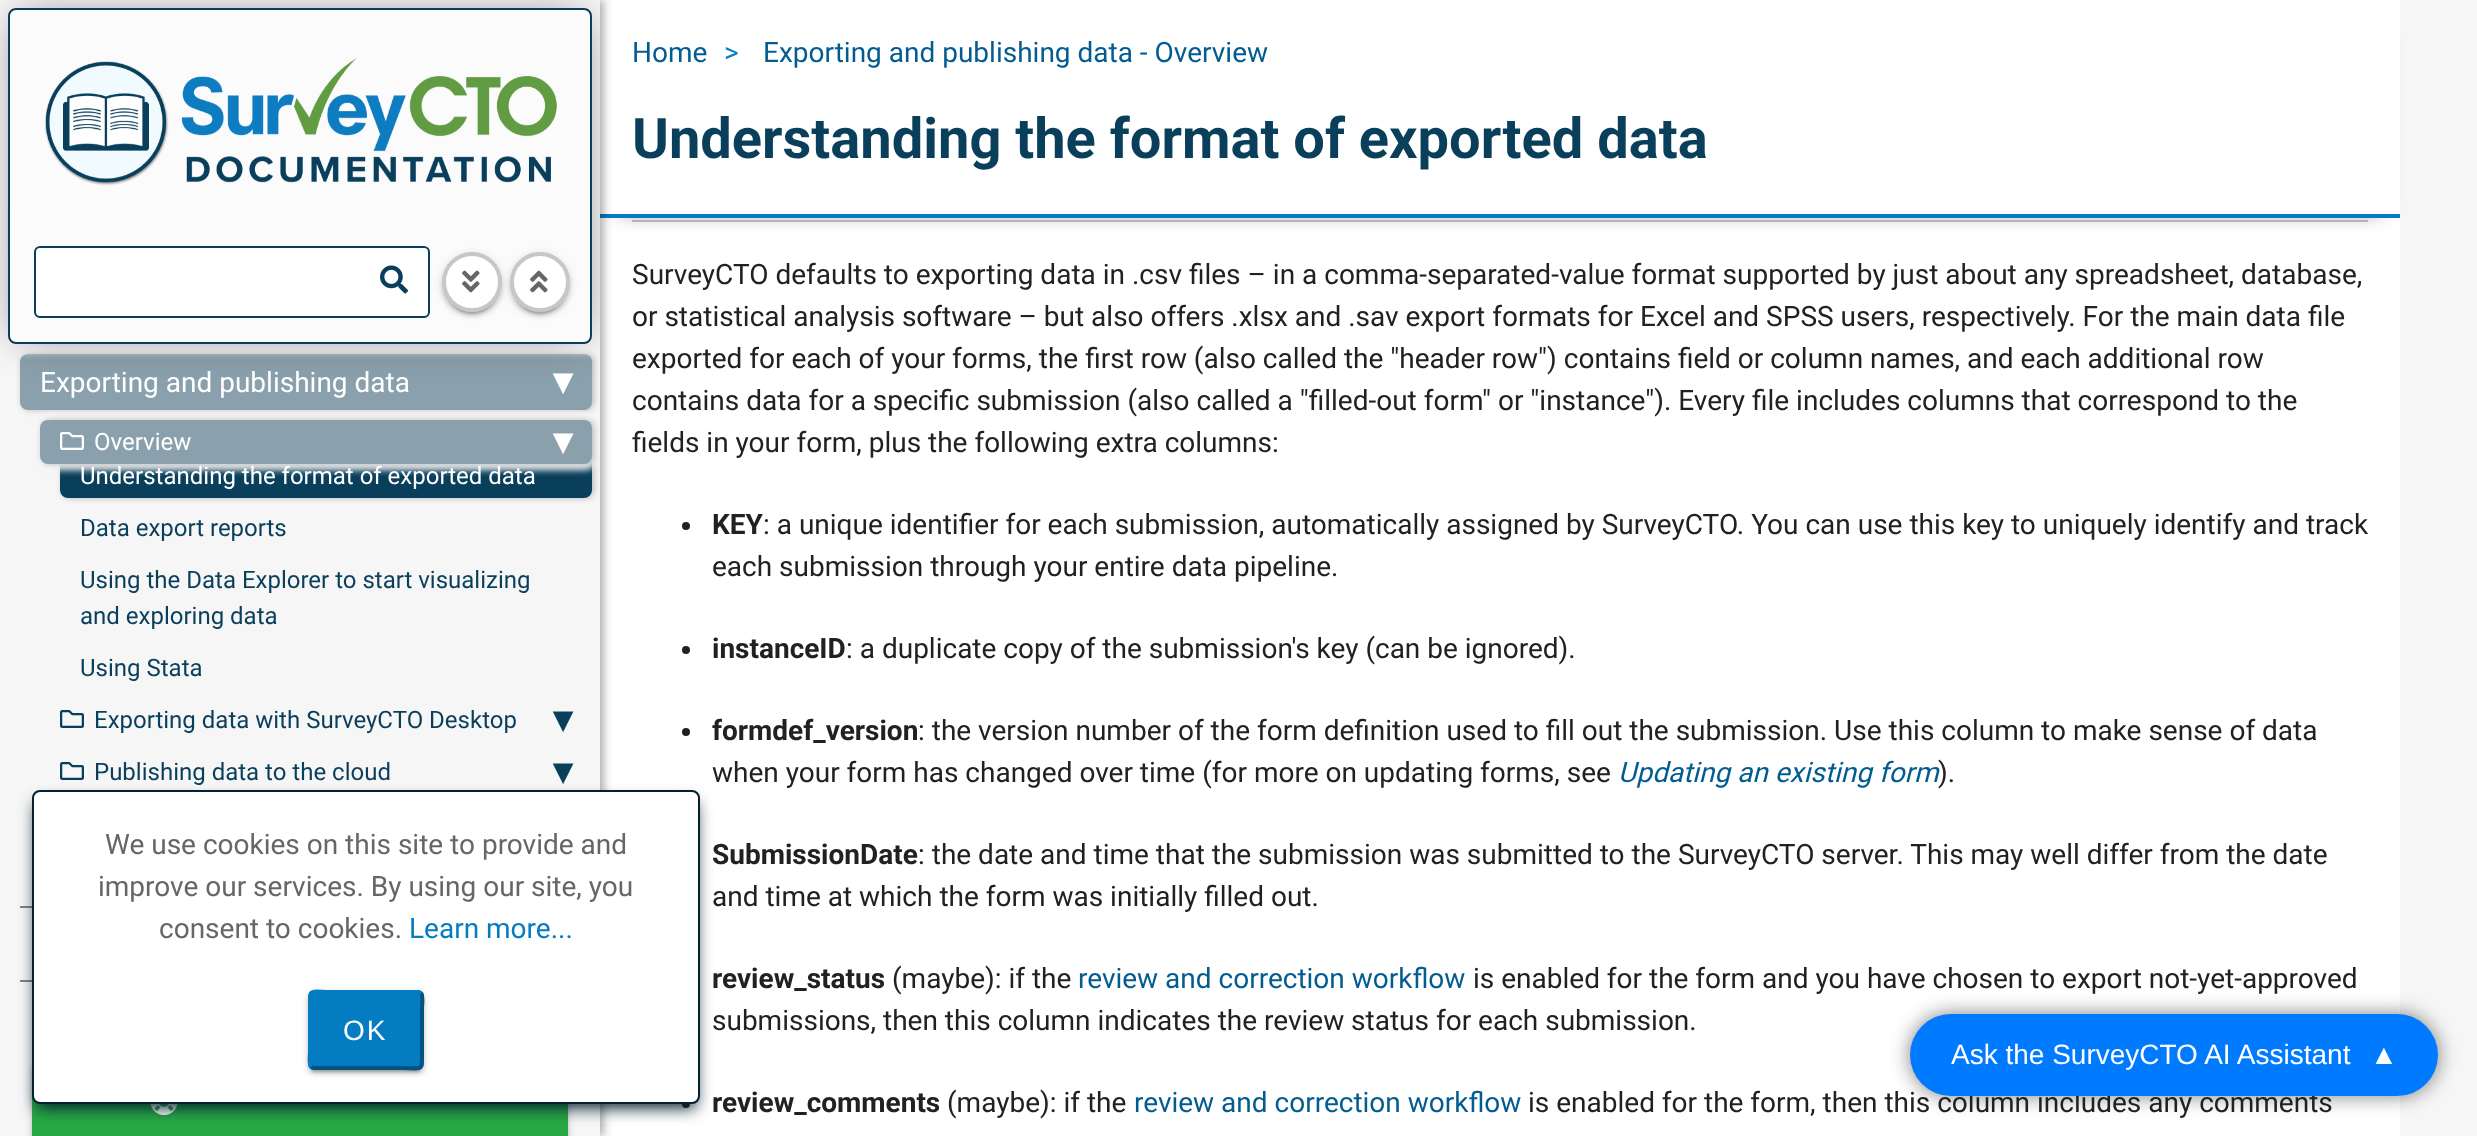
<svg xmlns="http://www.w3.org/2000/svg" width="2477" height="1136" viewBox="0 0 2477 1136">
  <defs>
    <clipPath id="clip1"><path d="M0 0h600v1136H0z"/></clipPath>
  </defs>
  <rect width="100%" height="100%" fill="#f6f6f6"/>
  <path d="M600 218h1800v918H600z" fill="#fff"/>
  <path d="M632 220h1736v2H632z" fill="#c7c7c7"/>
  <path d="M620 34h1760v178H620z" fill="#00000080" filter="blur(10px)"/>
  <path d="M600 0h1800v214H600z" fill="#fff"/>
  <path d="M600 214h1800v4H600z" fill="#047cc2"/>
  <path d="M4 0h600v1136H4z" fill="#0000004f" filter="blur(4px)"/>
  <path d="M0 0h600v1136H0z" fill="#f6f6f6"/>
  <rect x="22" y="354" width="572" height="56" rx="8" fill="#00000040" filter="blur(3px)"/>
  <rect x="62" y="454" width="532" height="44" rx="8" fill="#00000040" filter="blur(3px)"/>
  <rect x="60" y="454" width="532" height="44" rx="8" fill="#093f5b"/>
  <g clip-path="url(#clip1)">
    <rect x="34" y="414" width="564" height="56" rx="14" fill="#f6f6f6" filter="blur(3px)"/>
  </g>
  <rect x="20" y="354" width="572" height="56" rx="8" fill="#8aa0ac"/>
  <g clip-path="url(#clip1)">
    <rect width="600" height="352" rx="16" fill="#f6f6f6" filter="blur(4px)"/>
    <path d="M18 18h564v316H18z" fill="#00000080" filter="blur(20px)"/>
  </g>
  <rect x="9" y="9" width="582" height="334" rx="7" fill="#fbfbfb" stroke="#093f5b" stroke-width="2"/>
  <image x="44" y="58" width="513" height="128" href="img/1.png"/>
  <rect x="442" y="254" width="60" height="60" rx="30" fill="#0000001f" filter="blur(5px)"/>
  <rect x="35" y="247" width="394" height="70" rx="5" fill="#fff" stroke="#093f5b" stroke-width="2"/>
  <image x="380" y="265" width="28" height="29" href="img/2.png"/>
  <rect x="442" y="256" width="60" height="60" rx="30" fill="#00000024" filter="blur(2px)"/>
  <rect x="446" y="262" width="52" height="52" rx="26" fill="#00000033" filter="blur(1px)"/>
  <circle cx="472" cy="282" r="30" fill="#fff"/>
  <circle cx="472" cy="282" r="28" fill="none" stroke="#00000038" stroke-width="4"/>
  <image x="462" y="270" width="18" height="23" href="img/3.png"/>
  <rect x="510" y="254" width="60" height="60" rx="30" fill="#0000001f" filter="blur(5px)"/>
  <rect x="510" y="256" width="60" height="60" rx="30" fill="#00000024" filter="blur(2px)"/>
  <rect x="514" y="262" width="52" height="52" rx="26" fill="#00000033" filter="blur(1px)"/>
  <circle cx="540" cy="282" r="30" fill="#fff"/>
  <circle cx="540" cy="282" r="28" fill="none" stroke="#00000038" stroke-width="4"/>
  <image x="530" y="270" width="18" height="23" href="img/4.png"/>
  <path d="M20 906h12v2H20z" fill="#808080"/>
  <rect x="42" y="420" width="552" height="44" rx="8" fill="#00000040" filter="blur(3px)"/>
  <rect x="40" y="420" width="552" height="44" rx="8" fill="#8aa0ac"/>
  <image x="60" y="432" width="24" height="18" href="img/5.png"/>
  <image x="60" y="710" width="24" height="18" href="img/6.png"/>
  <image x="60" y="762" width="24" height="18" href="img/6.png"/>
  <path d="M20 980h12v2H20z" fill="#808080"/>
  <rect x="32" y="1064" width="536" height="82" rx="6" fill="#0000001f" filter="blur(5px)"/>
  <rect x="32" y="1066" width="536" height="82" rx="6" fill="#00000024" filter="blur(2px)"/>
  <path d="M32 1096h536v40H32z" fill="#28a745"/>
  <image x="150" y="1104" width="28" height="11" href="img/7.png"/>
  <circle cx="686" cy="526" r="4" fill="#212121"/>
  <circle cx="686" cy="650" r="4" fill="#212121"/>
  <circle cx="686" cy="732" r="4" fill="#212121"/>
  <circle cx="686" cy="1104" r="4" fill="#212121"/>
  <rect x="36" y="802" width="660" height="306" rx="4" fill="#041f2d" filter="blur(8px)"/>
  <rect x="33" y="791" width="666" height="312" rx="7" fill="#fff" stroke="#041f2d" stroke-width="2"/>
  <rect x="308" y="992" width="116" height="80" rx="6" fill="#0000001f" filter="blur(5px)"/>
  <rect x="308" y="994" width="116" height="80" rx="6" fill="#00000024" filter="blur(2px)"/>
  <rect x="312" y="1000" width="108" height="72" rx="2" fill="#00000033" filter="blur(1px)"/>
  <rect x="308" y="990" width="116" height="80" rx="6" fill="#047cc2"/>
  <path d="M421 993C423.5 996 422 1006 422 1007.5V1052.5C422 1072.5 423 1068 400.5 1068H314L311 1067" fill="none" stroke="#035381" stroke-width="4"/>
  <path d="M311 1067C308.5 1064 310 1054 310 1052.5V1007.5C310 987.5 309 992 331.5 992H418L421 993" fill="none" stroke="#047cc2" stroke-width="4"/>
  <rect x="1910" y="1014" width="528" height="82" rx="41" fill="#00000080" filter="blur(10px)"/>
  <text x="40" y="392" font-family="Roboto" font-size="28" fill="#fff">Exporting and publishing data</text>
  <text x="553" y="394" font-family="DejaVu Sans" font-size="38" font-weight="bold" fill="#fff">▾</text>
  <text x="94" y="450" font-family="Roboto" font-size="24" fill="#fff">Overview</text>
  <text x="553" y="454" font-family="DejaVu Sans" font-size="38" font-weight="bold" fill="#fff">▾</text>
  <text x="80" y="484" font-family="Roboto" font-size="24" fill="#fff">Understanding the format of exported data</text>
  <g font-family="Roboto" font-size="24" fill="#093f5b">
    <text x="80" y="536">Data export reports</text>
    <text x="80" y="588">Using the Data Explorer to start visualizing</text>
    <text x="80" y="624">and exploring data</text>
    <text x="80" y="676">Using Stata</text>
    <text x="94" y="728">Exporting data with SurveyCTO Desktop</text>
  </g>
  <text x="553" y="732" font-family="DejaVu Sans" font-size="38" font-weight="bold" fill="#093f5b">▾</text>
  <text x="94" y="780" font-family="Roboto" font-size="24" fill="#093f5b">Publishing data to the cloud</text>
  <text x="553" y="784" font-family="DejaVu Sans" font-size="38" font-weight="bold" fill="#093f5b">▾</text>
  <text x="632" y="62" font-family="Roboto" font-size="28" fill="#035c90">Home</text>
  <text x="724" y="62" font-family="Roboto" font-size="28" fill="#047cc2">&gt;</text>
  <text x="763" y="62" font-family="Roboto" font-size="28" fill="#035c90">Exporting and publishing data - Overview</text>
  <text x="632" y="158" font-family="Roboto" font-size="56" font-weight="bold" fill="#093f5b">Understanding the format of exported data</text>
  <g font-family="Roboto" font-size="28" fill="#212121">
    <text x="632" y="284">SurveyCTO defaults to exporting data in .csv files – in a comma-separated-value format supported by just about any spreadsheet, database,</text>
    <text x="632" y="326">or statistical analysis software – but also offers .xlsx and .sav export formats for Excel and SPSS users, respectively. For the main data file</text>
    <text x="632" y="368">exported for each of your forms, the first row (also called the "header row") contains field or column names, and each additional row</text>
    <text x="632" y="410">contains data for a specific submission (also called a "filled-out form" or "instance"). Every file includes columns that correspond to the</text>
    <text x="632" y="452">fields in your form, plus the following extra columns:</text>
  </g>
  <text x="712" y="534" font-family="Roboto" font-size="28" font-weight="bold" fill="#212121">KEY</text>
  <g font-family="Roboto" font-size="28" fill="#212121">
    <text x="763" y="534">: a unique identifier for each submission, automatically assigned by SurveyCTO. You can use this key to uniquely identify and track</text>
    <text x="712" y="576">each submission through your entire data pipeline.</text>
  </g>
  <text x="712" y="658" font-family="Roboto" font-size="28" font-weight="bold" fill="#212121">instanceID</text>
  <text x="846" y="658" font-family="Roboto" font-size="28" fill="#212121">: a duplicate copy of the submission's key (can be ignored).</text>
  <text x="712" y="740" font-family="Roboto" font-size="28" font-weight="bold" fill="#212121">formdef_version</text>
  <g font-family="Roboto" font-size="28" fill="#212121">
    <text x="918" y="740">: the version number of the form definition used to fill out the submission. Use this column to make sense of data</text>
    <text x="712" y="782">when your form has changed over time (for more on updating forms, see</text>
  </g>
  <text x="1618" y="782" font-family="Roboto" font-size="28" font-style="italic" fill="#035c90">Updating an existing form</text>
  <text x="1938" y="782" font-family="Roboto" font-size="28" fill="#212121">).</text>
  <text x="712" y="864" font-family="Roboto" font-size="28" font-weight="bold" fill="#212121">SubmissionDate</text>
  <g font-family="Roboto" font-size="28" fill="#212121">
    <text x="918" y="864">: the date and time that the submission was submitted to the SurveyCTO server. This may well differ from the date</text>
    <text x="712" y="906">and time at which the form was initially filled out.</text>
  </g>
  <text x="712" y="988" font-family="Roboto" font-size="28" font-weight="bold" fill="#212121">review_status</text>
  <text x="892" y="988" font-family="Roboto" font-size="28" fill="#212121">(maybe): if the</text>
  <text x="1078" y="988" font-family="Roboto" font-size="28" fill="#035c90">review and correction workflow</text>
  <g font-family="Roboto" font-size="28" fill="#212121">
    <text x="1473" y="988">is enabled for the form and you have chosen to export not-yet-approved</text>
    <text x="712" y="1030">submissions, then this column indicates the review status for each submission.</text>
  </g>
  <text x="712" y="1112" font-family="Roboto" font-size="28" font-weight="bold" fill="#212121">review_comments</text>
  <text x="947" y="1112" font-family="Roboto" font-size="28" fill="#212121">(maybe): if the</text>
  <text x="1134" y="1112" font-family="Roboto" font-size="28" fill="#035c90">review and correction workflow</text>
  <text x="1528" y="1112" font-family="Roboto" font-size="28" fill="#212121">is enabled for the form, then this column includes any comments</text>
  <g font-family="Roboto" font-size="28" fill="#666">
    <text x="105" y="854">We use cookies on this site to provide and</text>
    <text x="98" y="896">improve our services. By using our site, you</text>
    <text x="159" y="938">consent to cookies.</text>
  </g>
  <text x="409" y="938" font-family="Roboto" font-size="28" fill="#047cc2">Learn more...</text>
  <text x="343" y="1040" font-family="Liberation Sans" font-size="28" letter-spacing="2" fill="#fff">OK</text>
  <rect x="1910" y="1014" width="528" height="82" rx="41" fill="#007bff"/>
  <g font-family="Liberation Sans" font-size="28" fill="#fff">
    <text x="1951" y="1064">Ask the SurveyCTO AI Assistant</text>
    <text x="2370" y="1064">▲</text>
  </g>
</svg>
